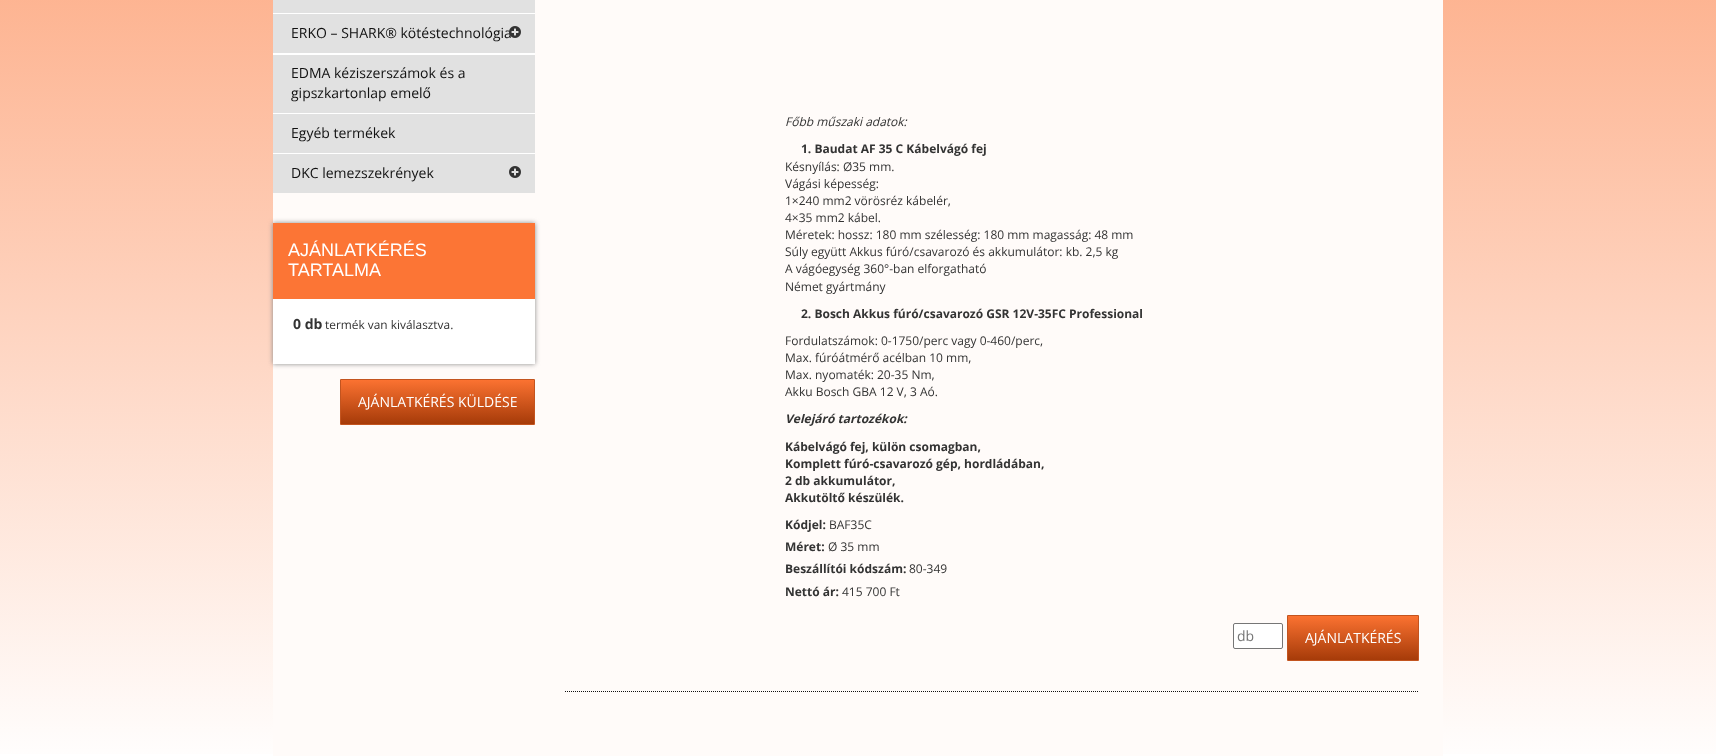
<svg xmlns="http://www.w3.org/2000/svg" width="1716" height="756" viewBox="0 0 1716 756">
  <defs>
    <linearGradient id="g1" gradientUnits="userSpaceOnUse" x1="858" y1="-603" x2="858" y2="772"><stop offset="0" stop-color="#fc7a3d"/><stop offset="1" stop-color="#fff"/></linearGradient>
    <linearGradient id="g2" gradientUnits="userSpaceOnUse" x1="438" y1="380" x2="438" y2="424"><stop offset="0" stop-color="#fb7231"/><stop offset="1" stop-color="#a63b09"/></linearGradient>
    <linearGradient id="g3" gradientUnits="userSpaceOnUse" x1="1353" y1="616" x2="1353" y2="660"><stop offset="0" stop-color="#fb7231"/><stop offset="1" stop-color="#a63b09"/></linearGradient>
  </defs>
  <rect width="100%" height="100%" fill="#fff"/>
  <path d="M0 0h1716v754H0z" fill="url(#g1)"/>
  <path d="M273 0h1170v756H273z" fill="#fffbf9"/>
  <path d="M273 0h262v13H273z" fill="#e1e1e1"/>
  <path d="M273 13h262v1H273z" fill="#fff"/>
  <path d="M273 14h262v39H273z" fill="#e1e1e1"/>
  <path d="M273 53h262v2H273z" fill="#fff"/>
  <path d="M273 55h262v58H273z" fill="#e1e1e1"/>
  <path d="M273 113h262v1H273z" fill="#fff"/>
  <path d="M273 114h262v39H273z" fill="#e1e1e1"/>
  <path d="M273 153h262v1H273z" fill="#fff"/>
  <path d="M273 154h262v39H273z" fill="#e1e1e1"/>
  <image x="509" y="166" width="12" height="12" href="img/2.png"/>
  <path d="M273 223h262v141H273z" fill="#888" filter="blur(2.5px)"/>
  <path d="M273 223h262v76H273z" fill="#fc7535"/>
  <path d="M273 299h262v65H273z" fill="#fff"/>
  <path d="M341 380h193v44H341z" fill="url(#g2)"/>
  <path d="M340.5 379.5h194v45H340.5z" fill="none" stroke="#c3541f"/>
  <path d="M565 691.5H1419" fill="none" stroke="#111" stroke-dasharray="1 1"/>
  <rect x="1233.5" y="623.5" width="49" height="25" rx="1.5" fill="#fff" stroke="#767676"/>
  <path d="M1288 616h130v44H1288z" fill="url(#g3)"/>
  <path d="M1287.5 615.5h131v45H1287.5z" fill="none" stroke="#c3541f"/>
  <text x="291" y="38" font-family="Open Sans" font-size="14" fill="#111">ERKO – SHARK® kötéstechnológia</text>
  <image x="509" y="26" width="12" height="12" href="img/1.png"/>
  <g font-family="Open Sans" font-size="14" fill="#111">
    <text x="291" y="78">EDMA kéziszerszámok és a</text>
    <text x="291" y="98">gipszkartonlap emelő</text>
    <text x="291" y="138">Egyéb termékek</text>
    <text x="291" y="178">DKC lemezszekrények</text>
  </g>
  <g font-family="Liberation Sans" font-size="18" fill="#fff">
    <text x="288" y="256">AJÁNLATKÉRÉS</text>
    <text x="288" y="276">TARTALMA</text>
  </g>
  <text x="293" y="329" font-family="Open Sans" font-size="14" font-weight="bold" fill="#333">0 db</text>
  <text x="325" y="329" font-family="Open Sans" font-size="11.9" fill="#333">termék van kiválasztva.</text>
  <text x="358" y="407" font-family="Open Sans" font-size="14" fill="#fff">AJÁNLATKÉRÉS KÜLDÉSE</text>
  <text x="785" y="126" font-family="Open Sans" font-size="12" font-style="italic" fill="#333">Főbb műszaki adatok:</text>
  <text x="801" y="153" font-family="Open Sans" font-size="12" font-weight="bold" fill="#333">1. Baudat AF 35 C Kábelvágó fej</text>
  <g font-family="Open Sans" font-size="12" fill="#333">
    <text x="785" y="171">Késnyílás: Ø35 mm.</text>
    <text x="785" y="188">Vágási képesség:</text>
    <text x="785" y="205">1×240 mm2 vörösréz kábelér,</text>
    <text x="785" y="222">4×35 mm2 kábel.</text>
    <text x="785" y="239">Méretek: hossz: 180 mm szélesség: 180 mm magasság: 48 mm</text>
    <text x="785" y="256">Súly együtt Akkus fúró/csavarozó és akkumulátor: kb. 2,5 kg</text>
    <text x="785" y="273">A vágóegység 360°-ban elforgatható</text>
    <text x="785" y="291">Német gyártmány</text>
  </g>
  <text x="801" y="318" font-family="Open Sans" font-size="12" font-weight="bold" fill="#333">2. Bosch Akkus fúró/csavarozó GSR 12V-35FC Professional</text>
  <g font-family="Open Sans" font-size="12" fill="#333">
    <text x="785" y="345">Fordulatszámok: 0-1750/perc vagy 0-460/perc,</text>
    <text x="785" y="362">Max. fúróátmérő acélban 10 mm,</text>
    <text x="785" y="379">Max. nyomaték: 20-35 Nm,</text>
    <text x="785" y="396">Akku Bosch GBA 12 V, 3 Aó.</text>
  </g>
  <text x="785" y="423" font-family="Open Sans" font-size="12" font-weight="bold" font-style="italic" fill="#333">Velejáró tartozékok:</text>
  <g font-family="Open Sans" font-size="12" font-weight="bold" fill="#333">
    <text x="785" y="451">Kábelvágó fej, külön csomagban,</text>
    <text x="785" y="468">Komplett fúró-csavarozó gép, hordládában,</text>
    <text x="785" y="485">2 db akkumulátor,</text>
    <text x="785" y="502">Akkutöltő készülék.</text>
    <text x="785" y="529">Kódjel:</text>
  </g>
  <text x="829" y="529" font-family="Open Sans" font-size="12" fill="#333">BAF35C</text>
  <text x="785" y="551" font-family="Open Sans" font-size="12" font-weight="bold" fill="#333">Méret:</text>
  <text x="828" y="551" font-family="Open Sans" font-size="12" fill="#333">Ø 35 mm</text>
  <text x="785" y="573" font-family="Open Sans" font-size="12" font-weight="bold" fill="#333">Beszállítói kódszám:</text>
  <text x="909" y="573" font-family="Open Sans" font-size="12" fill="#333">80-349</text>
  <text x="785" y="596" font-family="Open Sans" font-size="12" font-weight="bold" fill="#333">Nettó ár:</text>
  <text x="842" y="596" font-family="Open Sans" font-size="12" fill="#333">415 700 Ft</text>
  <text x="1237" y="641" font-family="Open Sans" font-size="14" fill="#757575">db</text>
  <text x="1305" y="643" font-family="Open Sans" font-size="14" fill="#fff">AJÁNLATKÉRÉS</text>
</svg>
